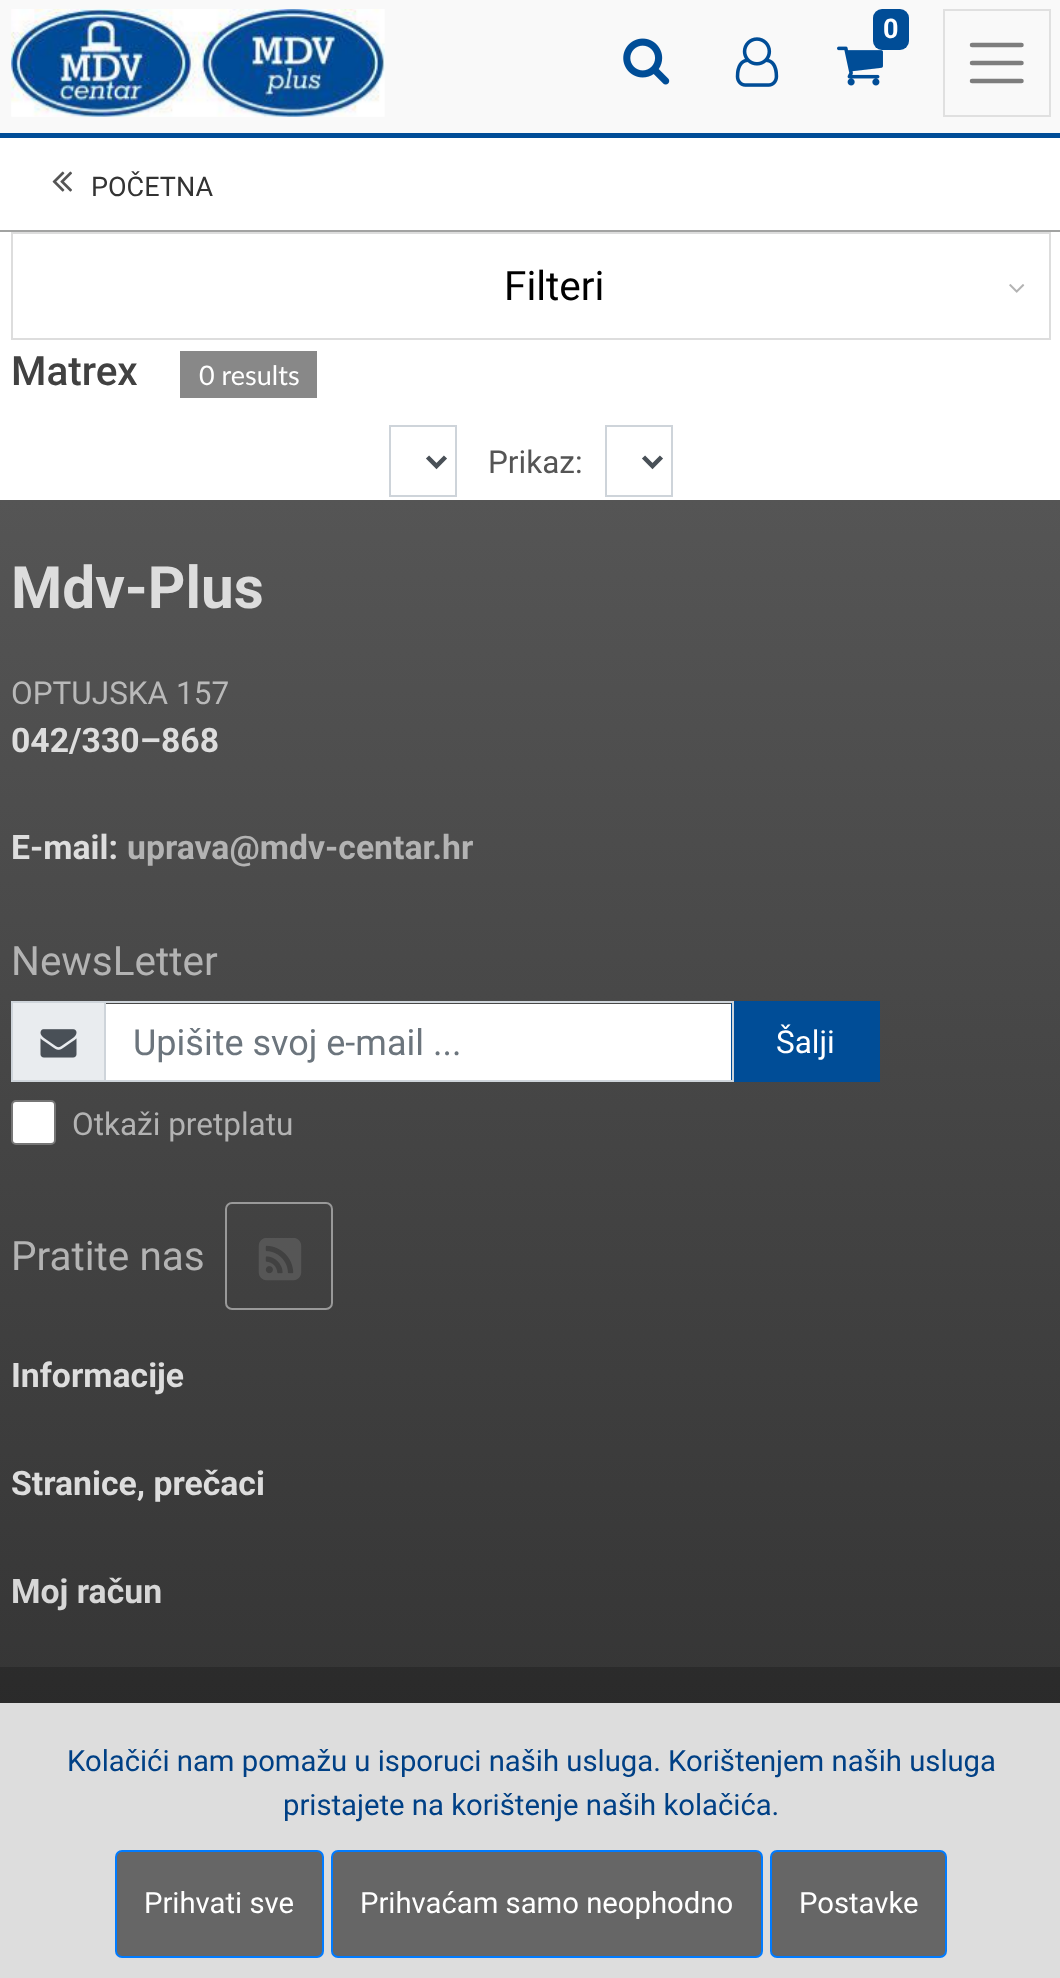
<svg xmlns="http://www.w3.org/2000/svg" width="1060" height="1978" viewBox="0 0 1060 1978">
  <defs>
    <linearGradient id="g1" gradientUnits="userSpaceOnUse" x1="531" y1="499" x2="531" y2="1868"><stop offset="0" stop-color="#555"/><stop offset="1" stop-color="#313131"/></linearGradient>
    <linearGradient id="g2" gradientUnits="userSpaceOnUse" x1="531" y1="499" x2="531" y2="1868"><stop offset="0" stop-color="#444"/><stop offset="1" stop-color="#272727"/></linearGradient>
  </defs>
  <rect width="100%" height="100%" fill="#fff"/>
  <path d="M0 0h1060v133H0z" fill="#f9f9f9"/>
  <path d="M0 133h1060v5H0z" fill="#004d97"/>
  <image x="11" y="9" width="374" height="108" href="img/1.png"/>
  <rect x="873" y="9" width="36" height="41" rx="9" fill="#004d97"/>
  <image x="837" y="46" width="46" height="40" href="img/2.png"/>
  <path d="M944 10h106v106H944z" fill="none" stroke="#e0e0e0" stroke-width="2"/>
  <path d="M972 45H1021.5M972 63H1021.5M972 81H1021.5" fill="none" stroke="#7d7d7d" stroke-width="4.5" stroke-linecap="round"/>
  <image x="623" y="38" width="47" height="47" href="img/3.png"/>
  <image x="735" y="37" width="44" height="50" href="img/4.png"/>
  <path d="M0 230h1060v2H0z" fill="#a2a3a2"/>
  <image x="52" y="171" width="20" height="21" href="img/5.png"/>
  <path d="M12 233h1038v106H12z" fill="none" stroke="#ddd" stroke-width="2"/>
  <image x="1009" y="284" width="16" height="9" href="img/6.png"/>
  <path d="M180 351h137v47H180z" fill="#888"/>
  <path d="M390 426h66v70H390z" fill="none" stroke="#ced4da" stroke-width="2"/>
  <path d="M427.5 457L436.5 466L445.5 457" fill="none" stroke="#495057" stroke-width="4.5"/>
  <path d="M606 426h66v70H606z" fill="none" stroke="#ced4da" stroke-width="2"/>
  <path d="M643.5 457L652.5 466L661.5 457" fill="none" stroke="#495057" stroke-width="4.5"/>
  <path d="M0 500h1060v1167H0z" fill="url(#g1)"/>
  <path d="M0 1667h1060v36H0z" fill="url(#g2)"/>
  <path d="M12 1002h93v79H12z" fill="#e9ecef" stroke="#ced4da" stroke-width="2"/>
  <image x="40" y="1029" width="37" height="29" href="img/7.png"/>
  <path d="M106 1004h625v76H106z" fill="#fff"/>
  <path d="M731 1001h149v81H731z" fill="#004d97"/>
  <path d="M105 1002h628v79H105z" fill="none" stroke="#ced4da" stroke-width="2"/>
  <rect x="12" y="1101" width="43" height="43" rx="4" fill="#fff" stroke="#767676" stroke-width="2"/>
  <rect x="226" y="1203" width="106" height="106" rx="6" fill="none" stroke="#999" stroke-width="2"/>
  <image x="258" y="1238" width="44" height="43" href="img/8.png"/>
  <path d="M0 1703h1060v275H0z" fill="#ddd"/>
  <rect x="116" y="1851" width="207" height="106" rx="6" fill="#666" stroke="#007bff" stroke-width="2"/>
  <rect x="332" y="1851" width="430" height="106" rx="6" fill="#666" stroke="#007bff" stroke-width="2"/>
  <rect x="771" y="1851" width="175" height="106" rx="6" fill="#666" stroke="#007bff" stroke-width="2"/>
  <text x="883" y="38" font-family="Roboto" font-size="27" font-weight="bold" fill="#fff">0</text>
  <text x="91" y="196" font-family="Roboto" font-size="27" fill="#333">POČETNA</text>
  <text x="504" y="300" font-family="Roboto" font-size="40.5" fill="#000">Filteri</text>
  <text x="11" y="385" font-family="Roboto" font-size="40.5" font-weight="500" fill="#414141">Matrex</text>
  <text x="199" y="385" font-family="Lato" font-size="27" fill="#fff">0 results</text>
  <text x="488" y="473" font-family="Roboto" font-size="31.5" fill="#555">Prikaz:</text>
  <text x="11" y="608" font-family="Roboto" font-size="58.5" font-weight="bold" fill="#ddd">Mdv-Plus</text>
  <text x="11" y="704" font-family="Roboto" font-size="31.5" fill="#b9b9b9">OPTUJSKA 157</text>
  <g font-family="Roboto" font-size="33.75" font-weight="bold" fill="#ddd">
    <text x="11" y="752">042/330–868</text>
    <text x="11" y="859">E-mail:</text>
  </g>
  <text x="127" y="859" font-family="Roboto" font-size="33.75" font-weight="bold" fill="#b3b3b3">uprava@mdv-centar.hr</text>
  <text x="11" y="975" font-family="Roboto" font-size="40.5" fill="#b3b3b3">NewsLetter</text>
  <text x="133" y="1055" font-family="Roboto" font-size="36" fill="#6c757d">Upišite svoj e-mail ...</text>
  <text x="776" y="1053" font-family="Roboto" font-size="31.5" fill="#fff">Šalji</text>
  <text x="72" y="1135" font-family="Roboto" font-size="31.5" fill="#b3b3b3">Otkaži pretplatu</text>
  <text x="11" y="1270" font-family="Roboto" font-size="40.5" fill="#b3b3b3">Pratite nas</text>
  <g font-family="Roboto" font-size="33.75" font-weight="bold" fill="#ddd">
    <text x="11" y="1387">Informacije</text>
    <text x="11" y="1495">Stranice, prečaci</text>
  </g>
  <text x="11" y="1603" font-family="Roboto" font-size="33.75" font-weight="bold" fill="#d7d7d7">Moj račun</text>
  <g font-family="Roboto" font-size="29.25" fill="#004085">
    <text x="67" y="1771">Kolačići nam pomažu u isporuci naših usluga. Korištenjem naših usluga</text>
    <text x="283" y="1815">pristajete na korištenje naših kolačića.</text>
  </g>
  <g font-family="Roboto" font-size="29.25" fill="#fff">
    <text x="144" y="1913">Prihvati sve</text>
    <text x="360" y="1913">Prihvaćam samo neophodno</text>
    <text x="799" y="1913">Postavke</text>
  </g>
</svg>
